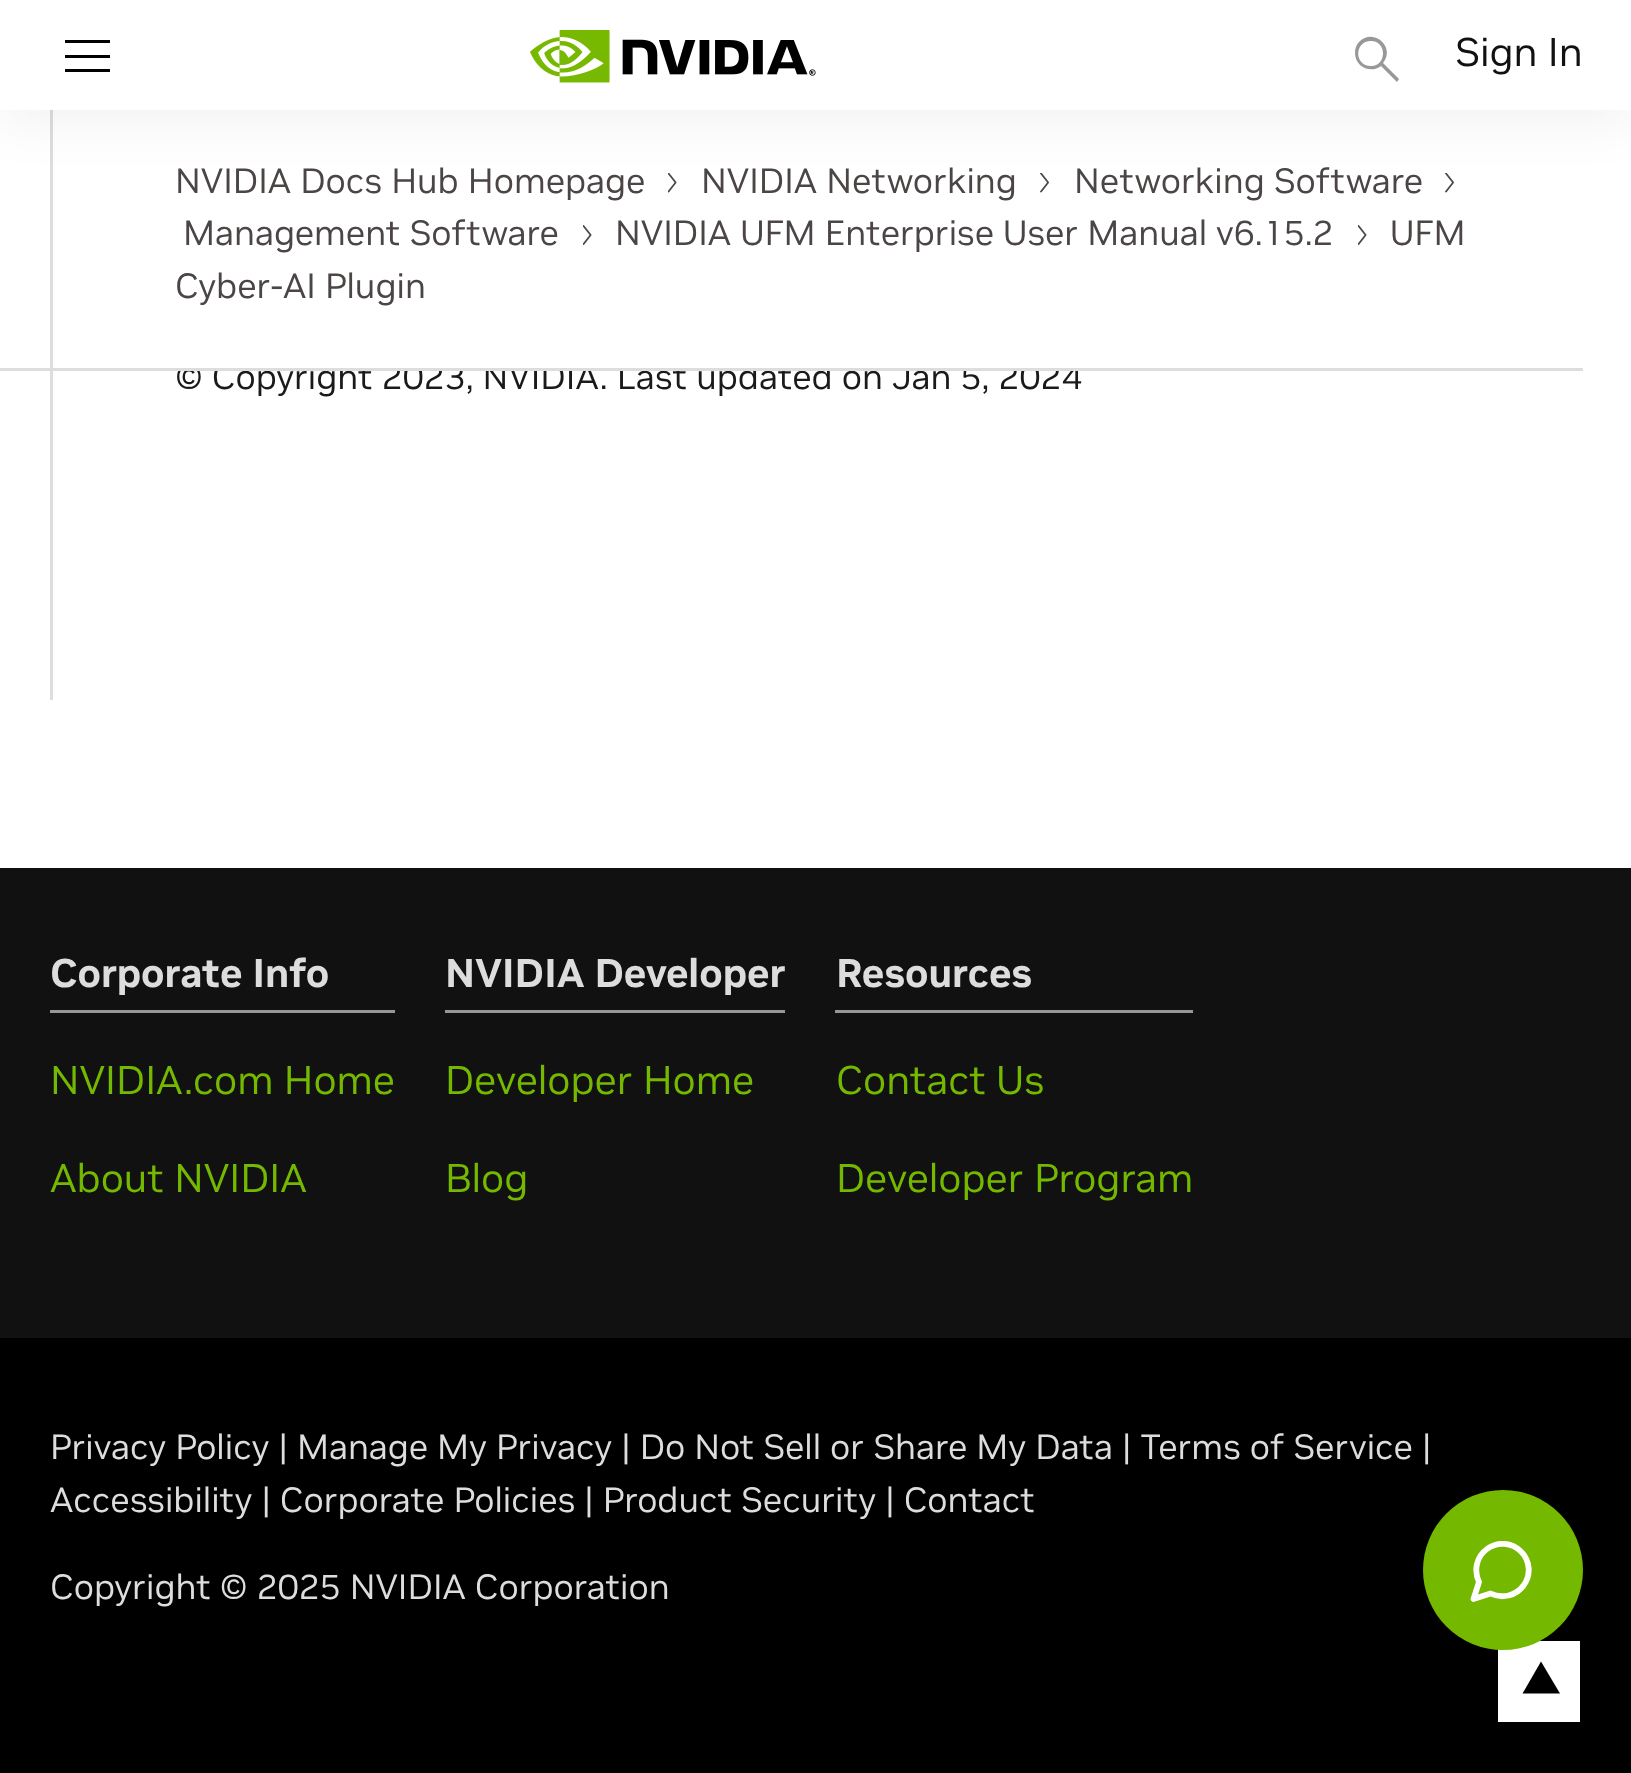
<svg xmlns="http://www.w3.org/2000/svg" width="1631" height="1773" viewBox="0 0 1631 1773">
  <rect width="100%" height="100%" fill="#fff"/>
  <image x="668" y="173" width="9" height="20" href="img/2.png"/>
  <image x="1040" y="173" width="9" height="20" href="img/3.png"/>
  <image x="1445" y="173" width="9" height="20" href="img/3.png"/>
  <image x="583" y="225" width="9" height="20" href="img/4.png"/>
  <image x="1358" y="225" width="9" height="20" href="img/4.png"/>
  <path d="M0 868h1631v470H0z" fill="#111"/>
  <path d="M50 1010h345v3H50z" fill="#979797"/>
  <path d="M445 1010h340v3H445z" fill="#979797"/>
  <path d="M835 1010h358v3H835z" fill="#979797"/>
  <path d="M0 1338h1631v435H0z" fill="#000"/>
  <path d="M1498 1641h82v81H1498z" fill="#fff"/>
  <circle cx="1503" cy="1570" r="80" fill="#74b800"/>
  <path d="M1490.5 1593.5C1502 1599 1516 1596 1523.5 1585.5C1531.5 1575 1530 1560.5 1521 1551.5C1512 1542.5 1497.5 1541 1487 1549C1476.5 1556.5 1473.5 1570.5 1479 1582L1473.5 1599Z" fill="none" stroke="#fff" stroke-width="5.8" stroke-linecap="round" stroke-linejoin="round"/>
  <path d="M1541 1661.5L1522.5 1693.5H1560Z" fill="#000"/>
  <g font-family="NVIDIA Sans" font-size="35" fill="#4b4545">
    <text x="175" y="193">NVIDIA Docs Hub Homepage</text>
    <text x="701" y="193">NVIDIA Networking</text>
    <text x="1074" y="193">Networking Software</text>
    <text x="183" y="245">Management Software</text>
    <text x="615" y="245">NVIDIA UFM Enterprise User Manual v6.15.2</text>
    <text x="1390" y="245">UFM</text>
    <text x="175" y="298">Cyber-AI Plugin</text>
  </g>
  <text x="175" y="389" font-family="NVIDIA Sans" font-size="35" fill="#1a1a1a">© Copyright 2023, NVIDIA. Last updated on Jan 5, 2024</text>
  <path d="M0 368h1583v3H0z" fill="#ddd"/>
  <path d="M50 110h3v590H50z" fill="#ddd"/>
  <path d="M0 13h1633v110H0z" fill="#0000000d" filter="blur(25px)"/>
  <path d="M0 0h1631v110H0z" fill="#fff"/>
  <text x="1455" y="66" font-family="NVIDIA Sans" font-size="40" fill="#111">Sign In</text>
  <path d="M1371 41C1354 41 1354 66 1371 66C1387 66 1387 41 1371 41ZM1355 53C1355 49 1356 45 1359 42C1374 27 1396 48 1383 63L1399 79L1397 82L1381 66C1371 74 1355 67 1355 53Z" fill="#9a9797" fill-rule="evenodd"/>
  <path d="M65 58V55H110V58ZM65 43V40H110V43ZM65 72V69H110V72Z" fill="#000" fill-rule="evenodd"/>
  <image x="530" y="30" width="286" height="53" href="img/1.png"/>
  <path d="M180 363h898v5H180z" fill="#fff"/>
  <text x="50" y="987" font-family="NVIDIA Sans" font-size="40" font-weight="bold" fill="#ddd">Corporate Info</text>
  <g font-family="NVIDIA Sans" font-size="40" fill="#74b900">
    <text x="50" y="1094">NVIDIA.com Home</text>
    <text x="50" y="1192">About NVIDIA</text>
  </g>
  <text x="445" y="987" font-family="NVIDIA Sans" font-size="40" font-weight="bold" fill="#ddd">NVIDIA Developer</text>
  <g font-family="NVIDIA Sans" font-size="40" fill="#74b900">
    <text x="445" y="1094">Developer Home</text>
    <text x="445" y="1192">Blog</text>
  </g>
  <text x="836" y="987" font-family="NVIDIA Sans" font-size="40" font-weight="bold" fill="#ddd">Resources</text>
  <g font-family="NVIDIA Sans" font-size="40" fill="#74b900">
    <text x="836" y="1094">Contact Us</text>
    <text x="836" y="1192">Developer Program</text>
  </g>
  <g font-family="NVIDIA Sans" font-size="35" fill="#ddd">
    <text x="50" y="1459">Privacy Policy | Manage My Privacy | Do Not Sell or Share My Data | Terms of Service |</text>
    <text x="50" y="1512">Accessibility | Corporate Policies | Product Security | Contact</text>
    <text x="50" y="1599">Copyright © 2025 NVIDIA Corporation</text>
  </g>
</svg>
